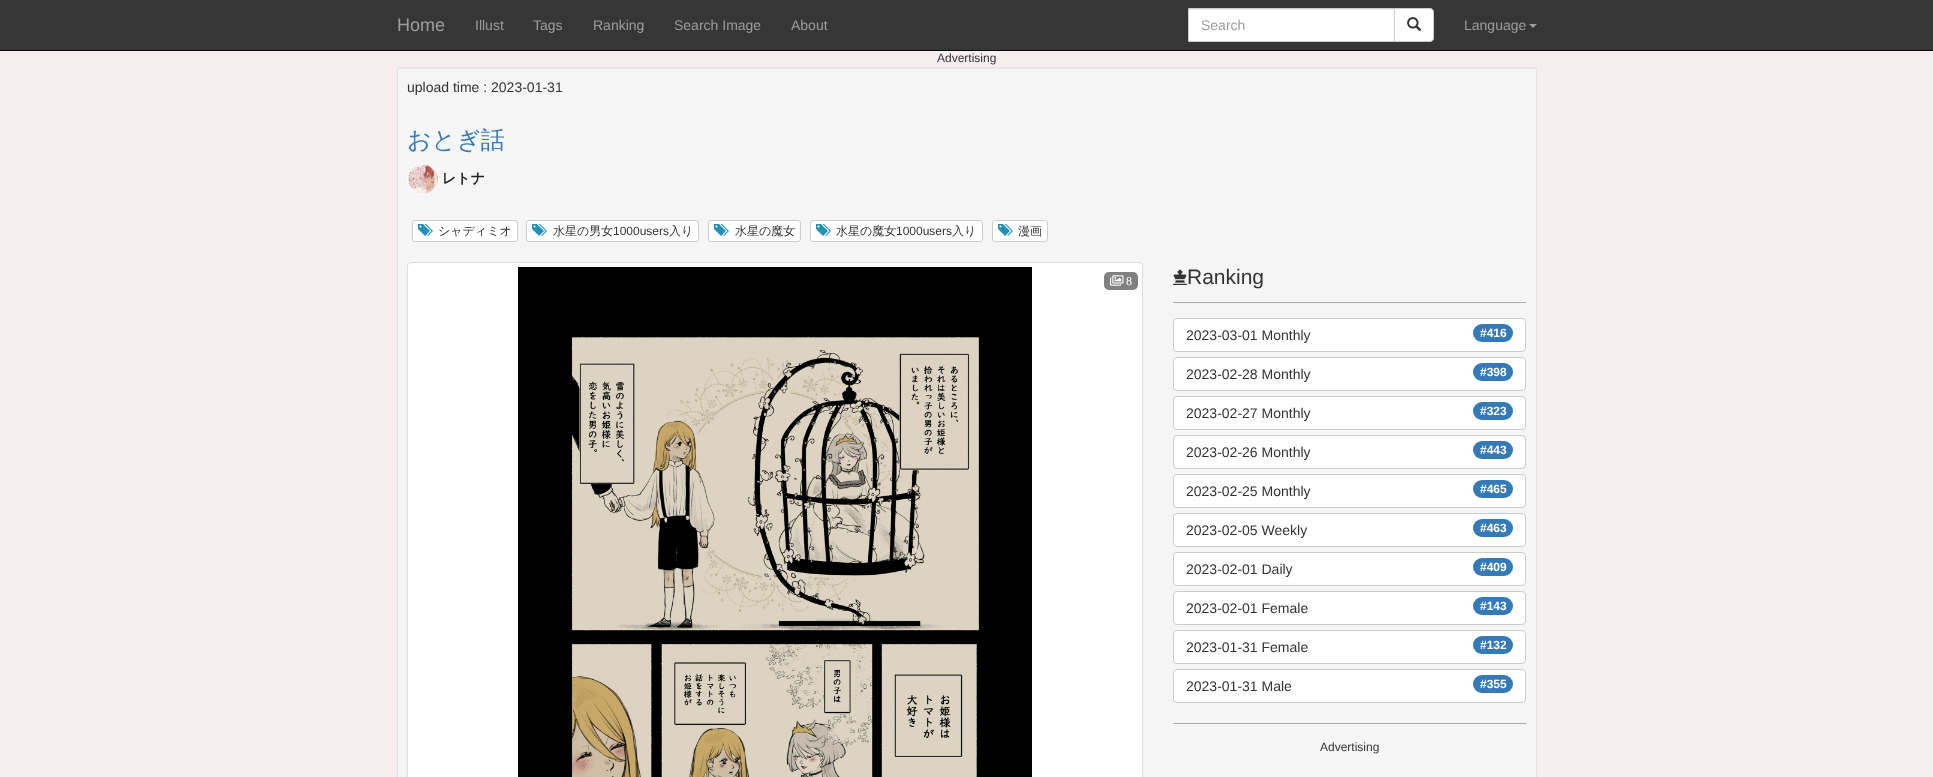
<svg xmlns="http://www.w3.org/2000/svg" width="1933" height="777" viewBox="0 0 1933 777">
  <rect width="100%" height="100%" fill="#f5edee"/>
  <path d="M0 0h1933v50H0z" fill="#373636"/>
  <path d="M0 50h1933v1H0z" fill="#080808"/>
  <path d="M1189 10h205v31H1189z" fill="#fff"/>
  <path d="M1189 9h205v1H1189z" fill="#ececec"/>
  <path d="M1188.5 8.5h206v33H1188.5z" fill="none" stroke="#ccc"/>
  <path d="M1394.5 8.5H1430C1432 8.5 1433.5 10 1433.5 12V38C1433.5 40 1432 41.5 1430 41.5H1394.5Z" fill="#fff" stroke="#ccc"/>
  <image x="1407" y="17" width="15" height="14" href="img/1.png"/>
  <path d="M1529 24H1537L1533 28Z" fill="#9d9d9d"/>
  <rect x="397" y="67" width="1140" height="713" rx="3" fill="#f5f5f5"/>
  <path d="M400 69H1534C1535 69 1536 70 1536 71V69L1534 68H400C399 68 398 69 398 70V71C398 70 399 69 400 69Z" fill="#e9e9e9"/>
  <rect x="397.5" y="67.5" width="1139" height="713" rx="2.5" fill="none" stroke="#e3e3e3"/>
  <circle cx="423" cy="179" r="15.5" fill="none" stroke="#fff"/>
  <image x="408" y="164" width="30" height="30" href="img/2.png"/>
  <rect x="412.5" y="220.5" width="105" height="21" rx="2.5" fill="#fff" stroke="#ccc"/>
  <image x="418" y="224" width="15" height="12" href="img/3.png"/>
  <rect x="526.5" y="220.5" width="172" height="21" rx="2.5" fill="#fff" stroke="#ccc"/>
  <image x="532" y="224" width="15" height="12" href="img/3.png"/>
  <rect x="708.5" y="220.5" width="92" height="21" rx="2.5" fill="#fff" stroke="#ccc"/>
  <image x="714" y="224" width="15" height="12" href="img/3.png"/>
  <rect x="810.5" y="220.5" width="172" height="21" rx="2.5" fill="#fff" stroke="#ccc"/>
  <image x="816" y="224" width="15" height="12" href="img/3.png"/>
  <rect x="992.5" y="220.5" width="55" height="21" rx="2.5" fill="#fff" stroke="#ccc"/>
  <image x="998" y="224" width="15" height="12" href="img/3.png"/>
  <rect x="407.5" y="262.5" width="735" height="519" rx="3.5" fill="#fff" stroke="#ddd"/>
  <image x="518" y="267" width="514" height="510" href="img/4.png"/>
  <rect x="1104" y="272" width="34" height="18" rx="5" fill="#808080"/>
  <image x="1110" y="275" width="14" height="11" href="img/5.png"/>
  <image x="1173" y="269" width="14" height="16" href="img/6.png"/>
  <path d="M1173 302h353v1H1173z" fill="#aaa"/>
  <rect x="1173.5" y="318.5" width="352" height="33" rx="3.5" fill="#fff" stroke="#ccc"/>
  <rect x="1473" y="324" width="40" height="18" rx="9" fill="#337ab7"/>
  <rect x="1173.5" y="357.5" width="352" height="33" rx="3.5" fill="#fff" stroke="#ccc"/>
  <rect x="1473" y="363" width="40" height="18" rx="9" fill="#337ab7"/>
  <rect x="1173.5" y="396.5" width="352" height="33" rx="3.5" fill="#fff" stroke="#ccc"/>
  <rect x="1473" y="402" width="40" height="18" rx="9" fill="#337ab7"/>
  <rect x="1173.5" y="435.5" width="352" height="33" rx="3.5" fill="#fff" stroke="#ccc"/>
  <rect x="1473" y="441" width="40" height="18" rx="9" fill="#337ab7"/>
  <rect x="1173.5" y="474.5" width="352" height="33" rx="3.5" fill="#fff" stroke="#ccc"/>
  <rect x="1473" y="480" width="40" height="18" rx="9" fill="#337ab7"/>
  <rect x="1173.5" y="513.5" width="352" height="33" rx="3.5" fill="#fff" stroke="#ccc"/>
  <rect x="1473" y="519" width="40" height="18" rx="9" fill="#337ab7"/>
  <rect x="1173.5" y="552.5" width="352" height="33" rx="3.5" fill="#fff" stroke="#ccc"/>
  <rect x="1473" y="558" width="40" height="18" rx="9" fill="#337ab7"/>
  <rect x="1173.5" y="591.5" width="352" height="33" rx="3.5" fill="#fff" stroke="#ccc"/>
  <rect x="1473" y="597" width="40" height="18" rx="9" fill="#337ab7"/>
  <rect x="1173.5" y="630.5" width="352" height="33" rx="3.5" fill="#fff" stroke="#ccc"/>
  <rect x="1473" y="636" width="40" height="18" rx="9" fill="#337ab7"/>
  <rect x="1173.5" y="669.5" width="352" height="33" rx="3.5" fill="#fff" stroke="#ccc"/>
  <rect x="1473" y="675" width="40" height="18" rx="9" fill="#337ab7"/>
  <path d="M1173 723h353v1H1173z" fill="#aaa"/>
  <text x="397" y="31" font-family="Liberation Sans" font-size="18" fill="#9d9d9d">Home</text>
  <g font-family="Liberation Sans" font-size="14" fill="#9d9d9d">
    <text x="475" y="30">Illust</text>
    <text x="533" y="30">Tags</text>
    <text x="593" y="30">Ranking</text>
    <text x="674" y="30">Search Image</text>
    <text x="791" y="30">About</text>
    <text x="1201" y="30">Search</text>
    <text x="1464" y="30">Language</text>
  </g>
  <text x="937" y="62" font-family="Liberation Sans" font-size="12" fill="#333">Advertising</text>
  <text x="407" y="92" font-family="Liberation Sans" font-size="14" fill="#333">upload time : 2023-01-31</text>
  <text x="407" y="148" font-family="WenQuanYi Zen Hei" font-size="24" font-weight="500" fill="#337ab7">おとぎ話</text>
  <text x="442" y="183" font-family="WenQuanYi Zen Hei" font-size="14" font-weight="bold" fill="#222">レトナ</text>
  <g font-family="WenQuanYi Zen Hei" font-size="12" font-weight="500" fill="#333">
    <text x="438" y="235">シャディミオ</text>
    <text x="553" y="235">水星の男女</text>
  </g>
  <text x="613" y="235" font-family="Liberation Sans" font-size="12" fill="#333">1000users</text>
  <g font-family="WenQuanYi Zen Hei" font-size="12" font-weight="500" fill="#333">
    <text x="669" y="235">入り</text>
    <text x="735" y="235">水星の魔女</text>
    <text x="836" y="235">水星の魔女</text>
  </g>
  <text x="896" y="235" font-family="Liberation Sans" font-size="12" fill="#333">1000users</text>
  <g font-family="WenQuanYi Zen Hei" font-size="12" font-weight="500" fill="#333">
    <text x="952" y="235">入り</text>
    <text x="1018" y="235">漫画</text>
  </g>
  <text x="1126" y="285" font-family="Liberation Serif" font-size="12" fill="#fff">8</text>
  <text x="1187" y="284" font-family="Liberation Sans" font-size="21" fill="#333">Ranking</text>
  <text x="1186" y="340" font-family="Liberation Sans" font-size="14" fill="#333">2023-03-01 Monthly</text>
  <text x="1480" y="337" font-family="Liberation Sans" font-size="12" font-weight="bold" fill="#fff">#416</text>
  <text x="1186" y="379" font-family="Liberation Sans" font-size="14" fill="#333">2023-02-28 Monthly</text>
  <text x="1480" y="376" font-family="Liberation Sans" font-size="12" font-weight="bold" fill="#fff">#398</text>
  <text x="1186" y="418" font-family="Liberation Sans" font-size="14" fill="#333">2023-02-27 Monthly</text>
  <text x="1480" y="415" font-family="Liberation Sans" font-size="12" font-weight="bold" fill="#fff">#323</text>
  <text x="1186" y="457" font-family="Liberation Sans" font-size="14" fill="#333">2023-02-26 Monthly</text>
  <text x="1480" y="454" font-family="Liberation Sans" font-size="12" font-weight="bold" fill="#fff">#443</text>
  <text x="1186" y="496" font-family="Liberation Sans" font-size="14" fill="#333">2023-02-25 Monthly</text>
  <text x="1480" y="493" font-family="Liberation Sans" font-size="12" font-weight="bold" fill="#fff">#465</text>
  <text x="1186" y="535" font-family="Liberation Sans" font-size="14" fill="#333">2023-02-05 Weekly</text>
  <text x="1480" y="532" font-family="Liberation Sans" font-size="12" font-weight="bold" fill="#fff">#463</text>
  <text x="1186" y="574" font-family="Liberation Sans" font-size="14" fill="#333">2023-02-01 Daily</text>
  <text x="1480" y="571" font-family="Liberation Sans" font-size="12" font-weight="bold" fill="#fff">#409</text>
  <text x="1186" y="613" font-family="Liberation Sans" font-size="14" fill="#333">2023-02-01 Female</text>
  <text x="1480" y="610" font-family="Liberation Sans" font-size="12" font-weight="bold" fill="#fff">#143</text>
  <text x="1186" y="652" font-family="Liberation Sans" font-size="14" fill="#333">2023-01-31 Female</text>
  <text x="1480" y="649" font-family="Liberation Sans" font-size="12" font-weight="bold" fill="#fff">#132</text>
  <text x="1186" y="691" font-family="Liberation Sans" font-size="14" fill="#333">2023-01-31 Male</text>
  <text x="1480" y="688" font-family="Liberation Sans" font-size="12" font-weight="bold" fill="#fff">#355</text>
  <text x="1320" y="751" font-family="Liberation Sans" font-size="12" fill="#333">Advertising</text>
</svg>
